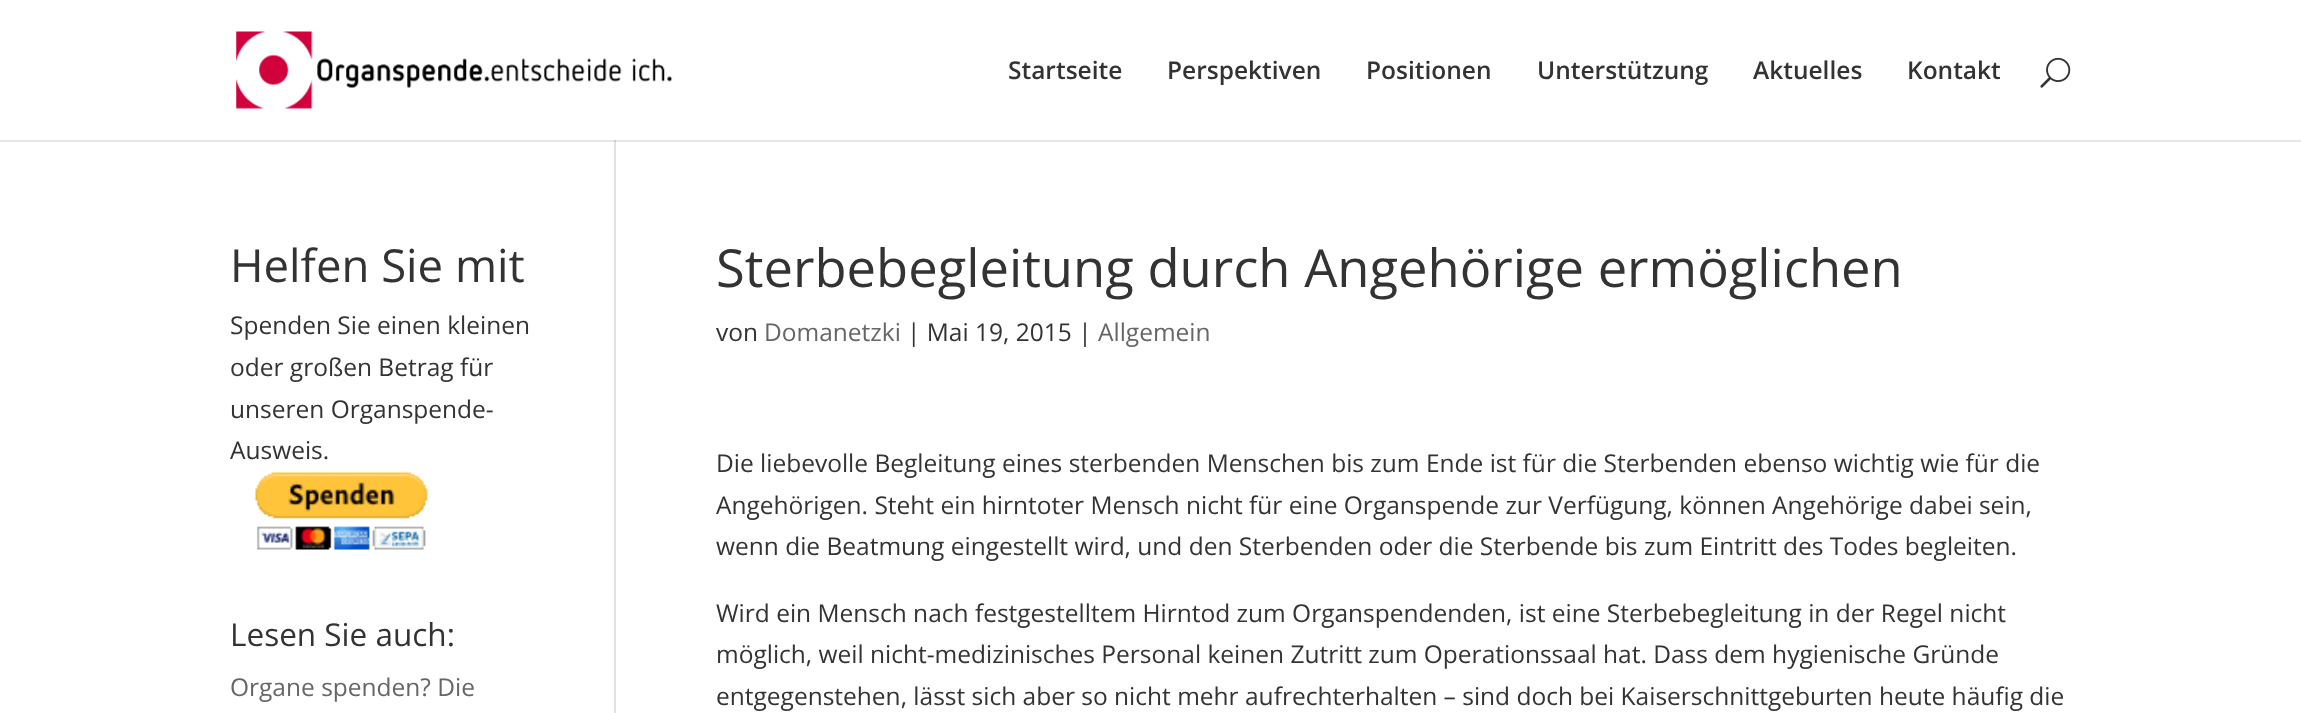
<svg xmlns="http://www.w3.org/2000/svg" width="2301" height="713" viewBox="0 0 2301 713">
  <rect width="100%" height="100%" fill="#fff"/>
  <path d="M0 140h2301v2H0z" fill="#e6e6e6"/>
  <image x="236" y="31" width="437" height="78" href="img/1.png"/>
  <image x="2040" y="57" width="31" height="31" href="img/2.png"/>
  <path d="M614 140h2v573H614z" fill="#e2e2e2"/>
  <path d="M614 140h2v2H614z" fill="#cbcbcb"/>
  <image x="255" y="472" width="173" height="78" href="img/3.png"/>
  <g font-family="Open Sans" font-size="24.5" font-weight="600" fill="#333">
    <text x="1008" y="79">Startseite</text>
    <text x="1167" y="79">Perspektiven</text>
    <text x="1366" y="79">Positionen</text>
    <text x="1537" y="79">Unterstützung</text>
    <text x="1753" y="79">Aktuelles</text>
    <text x="1907" y="79">Kontakt</text>
  </g>
  <text x="230" y="282" font-family="Open Sans" font-size="45.5" fill="#333">Helfen Sie mit</text>
  <g font-family="Open Sans" font-size="24.5" fill="#333">
    <text x="230" y="334">Spenden Sie einen kleinen</text>
    <text x="230" y="376">oder großen Betrag für</text>
    <text x="230" y="418">unseren Organspende-</text>
    <text x="230" y="459">Ausweis.</text>
  </g>
  <text x="230" y="646" font-family="Open Sans" font-size="31.5" fill="#333">Lesen Sie auch:</text>
  <text x="230" y="696" font-family="Open Sans" font-size="24.5" fill="#666">Organe spenden? Die</text>
  <text x="716" y="287" font-family="Open Sans" font-size="52.5" fill="#333">Sterbebegleitung durch Angehörige ermöglichen</text>
  <text x="716" y="341" font-family="Open Sans" font-size="24.5" fill="#333">von</text>
  <text x="764" y="341" font-family="Open Sans" font-size="24.5" fill="#666">Domanetzki</text>
  <text x="907" y="341" font-family="Open Sans" font-size="24.5" fill="#333">| Mai 19, 2015 |</text>
  <text x="1098" y="341" font-family="Open Sans" font-size="24.5" fill="#666">Allgemein</text>
  <g font-family="Open Sans" font-size="24.5" fill="#333">
    <text x="716" y="472">Die liebevolle Begleitung eines sterbenden Menschen bis zum Ende ist für die Sterbenden ebenso wichtig wie für die</text>
    <text x="716" y="514">Angehörigen. Steht ein hirntoter Mensch nicht für eine Organspende zur Verfügung, können Angehörige dabei sein,</text>
    <text x="716" y="555">wenn die Beatmung eingestellt wird, und den Sterbenden oder die Sterbende bis zum Eintritt des Todes begleiten.</text>
    <text x="716" y="622">Wird ein Mensch nach festgestelltem Hirntod zum Organspendenden, ist eine Sterbebegleitung in der Regel nicht</text>
    <text x="716" y="663">möglich, weil nicht-medizinisches Personal keinen Zutritt zum Operationssaal hat. Dass dem hygienische Gründe</text>
    <text x="716" y="705">entgegenstehen, lässt sich aber so nicht mehr aufrechterhalten – sind doch bei Kaiserschnittgeburten heute häufig die</text>
  </g>
</svg>
